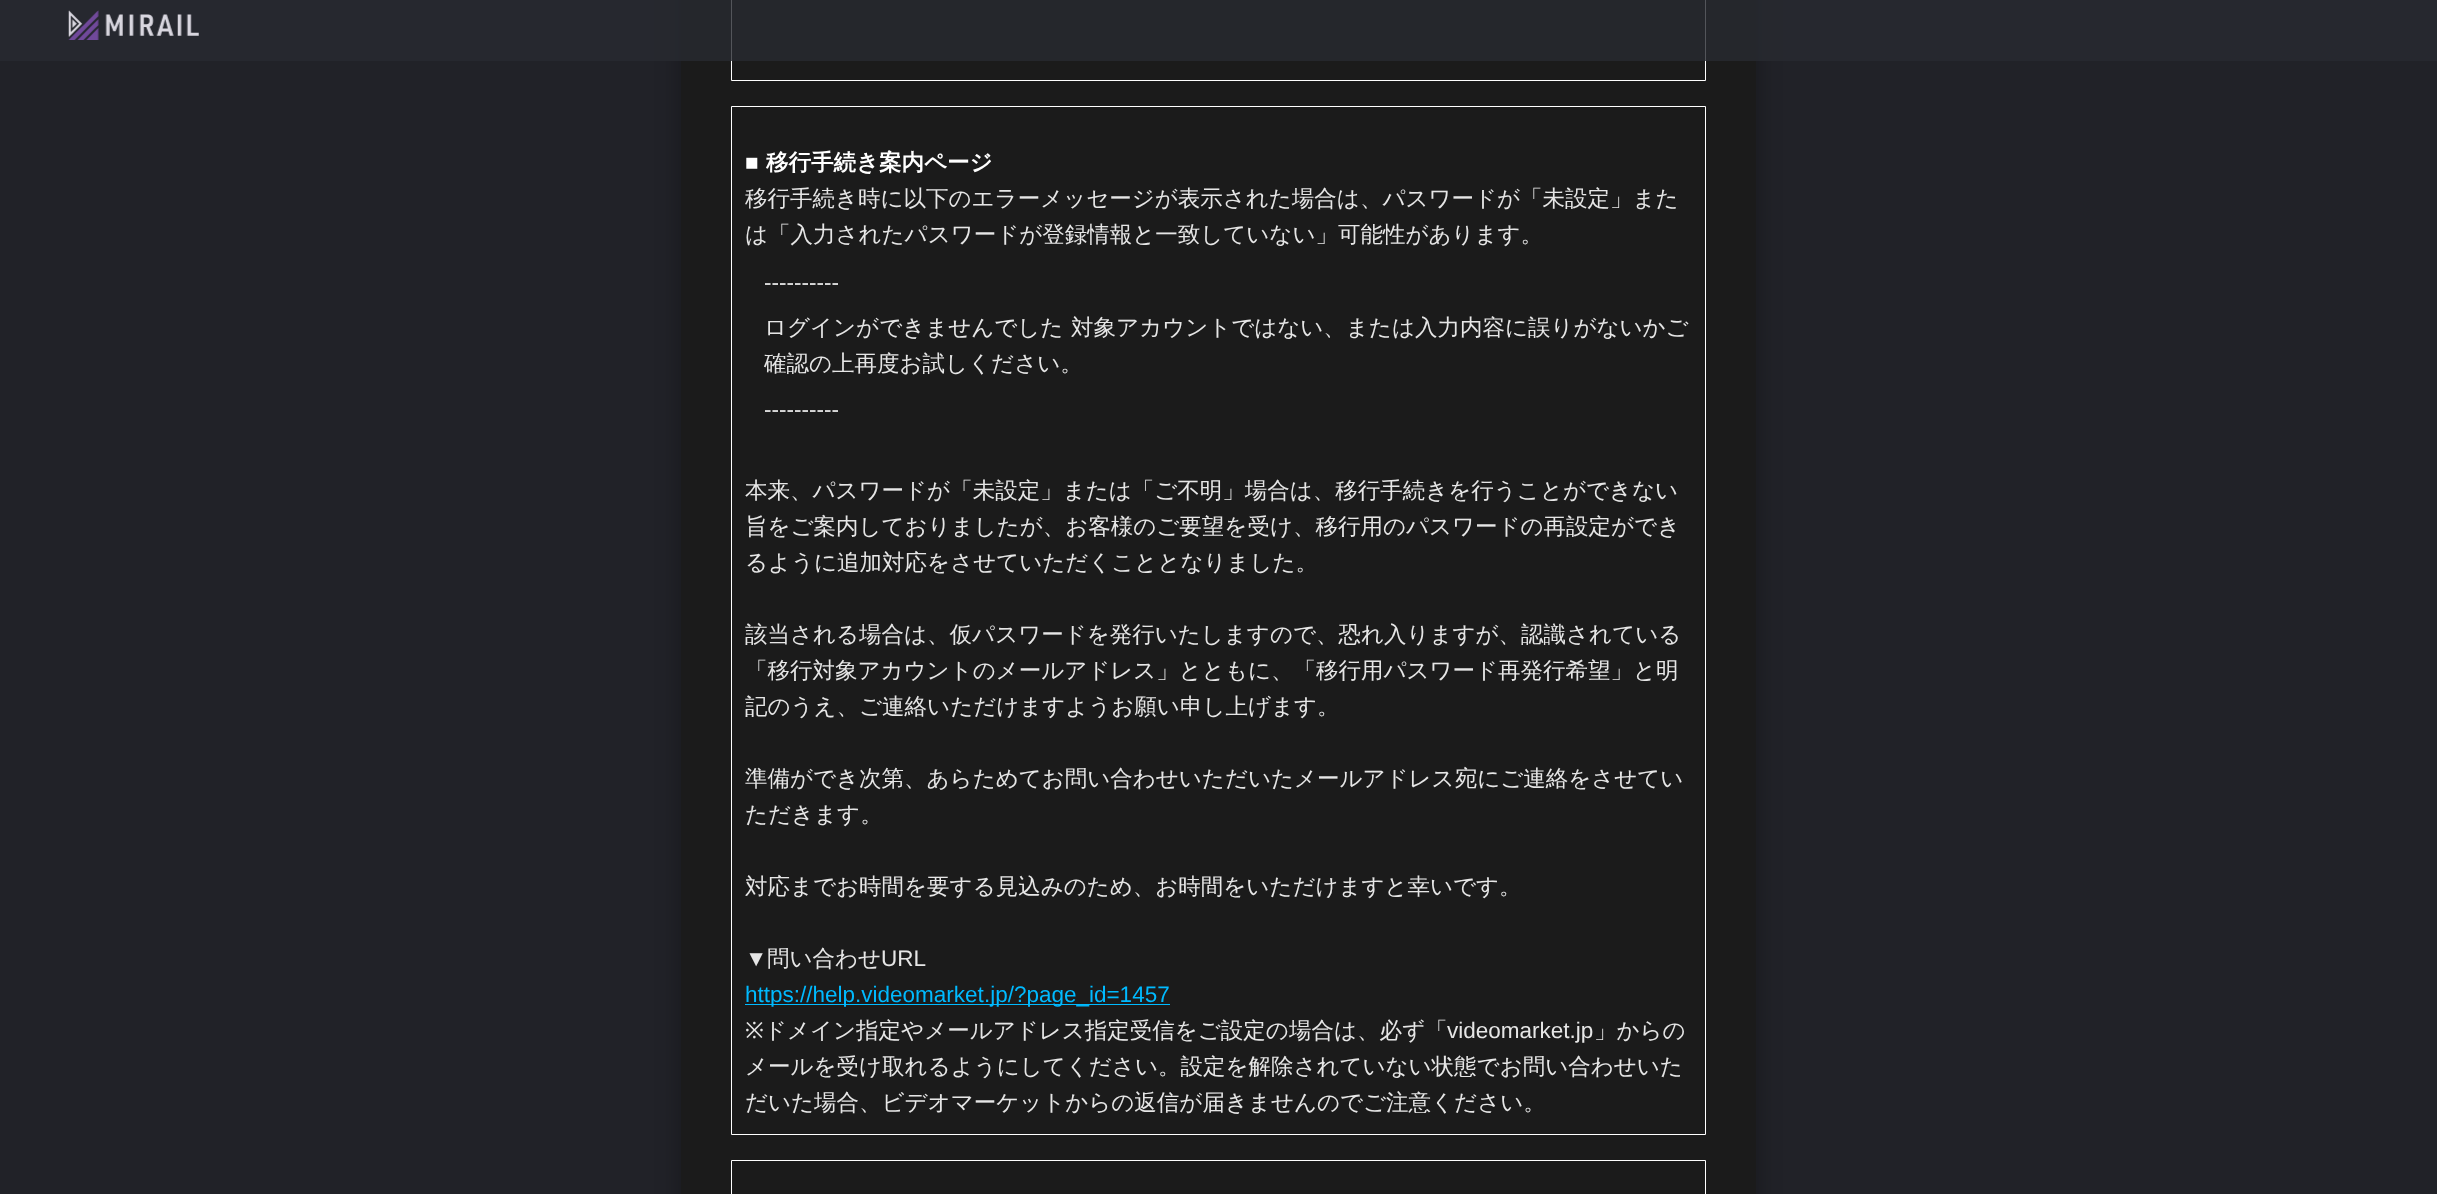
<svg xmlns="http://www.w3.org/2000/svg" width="2437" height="1194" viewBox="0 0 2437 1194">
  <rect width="100%" height="100%" fill="#212228"/>
  <rect x="681" y="-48" width="1075" height="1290" rx="10" fill="#0000004d" filter="blur(12.5px)"/>
  <path d="M681 0h1075v1194H681z" fill="#1b1b1b"/>
  <path d="M731.5 -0.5h974v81H731.5z" fill="none" stroke="#fff"/>
  <path d="M0 0h2437v61H0z" fill="#282a31cc"/>
  <image x="68" y="10" width="131" height="30" href="img/1.png"/>
  <path d="M731.5 106.5h974v1028H731.5z" fill="none" stroke="#fff"/>
  <path d="M745 1004h425v1H745z" fill="#00baff"/>
  <path d="M731.5 1160.5h974v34H731.5z" fill="none" stroke="#fff"/>
  <text x="745" y="170" font-family="Liberation Sans" font-size="22.5" font-weight="bold" fill="#fff">■</text>
  <text x="766" y="170" font-family="WenQuanYi Zen Hei" font-size="22.5" font-weight="bold" fill="#fff">移行手続き案内ページ</text>
  <g font-family="WenQuanYi Zen Hei" font-size="22.5" font-weight="500" fill="#e6e6e6">
    <text x="745" y="206">移行手続き時に以下のエラーメッセージが表示された場合は、パスワードが「未設定」また</text>
    <text x="745" y="242">は「入力されたパスワードが登録情報と一致していない」可能性があります。</text>
  </g>
  <text x="764" y="290" font-family="Liberation Sans" font-size="22.5" fill="#e6e6e6">----------</text>
  <g font-family="WenQuanYi Zen Hei" font-size="22.5" font-weight="500" fill="#e6e6e6">
    <text x="764" y="335" word-spacing="1">ログインができませんでした 対象アカウントではない、または入力内容に誤りがないかご</text>
    <text x="764" y="371">確認の上再度お試しください。</text>
  </g>
  <text x="764" y="417" font-family="Liberation Sans" font-size="22.5" fill="#e6e6e6">----------</text>
  <g font-family="WenQuanYi Zen Hei" font-size="22.5" font-weight="500" fill="#e6e6e6">
    <text x="745" y="498">本来、パスワードが「未設定」または「ご不明」場合は、移行手続きを行うことができない</text>
    <text x="745" y="534">旨をご案内しておりましたが、お客様のご要望を受け、移行用のパスワードの再設定ができ</text>
    <text x="745" y="570">るように追加対応をさせていただくこととなりました。</text>
    <text x="745" y="642">該当される場合は、仮パスワードを発行いたしますので、恐れ入りますが、認識されている</text>
    <text x="745" y="678">「移行対象アカウントのメールアドレス」とともに、「移行用パスワード再発行希望」と明</text>
    <text x="745" y="714">記のうえ、ご連絡いただけますようお願い申し上げます。</text>
    <text x="745" y="786">準備ができ次第、あらためてお問い合わせいただいたメールアドレス宛にご連絡をさせてい</text>
    <text x="745" y="822">ただきます。</text>
    <text x="745" y="894">対応までお時間を要する見込みのため、お時間をいただけますと幸いです。</text>
  </g>
  <text x="745" y="966" font-family="Liberation Sans" font-size="22.5" fill="#e6e6e6">▼</text>
  <text x="767" y="966" font-family="WenQuanYi Zen Hei" font-size="22.5" font-weight="500" fill="#e6e6e6">問い合わせ</text>
  <text x="881" y="966" font-family="Liberation Sans" font-size="22.5" fill="#e6e6e6">URL</text>
  <text x="745" y="1002" font-family="Liberation Sans" font-size="22.5" fill="#00baff">https://help.videomarket.jp/?page_id=1457</text>
  <text x="745" y="1038" font-family="Noto Sans" font-size="22.5" fill="#e6e6e6">※</text>
  <text x="764" y="1038" font-family="WenQuanYi Zen Hei" font-size="22.5" font-weight="500" fill="#e6e6e6">ドメイン指定やメールアドレス指定受信をご設定の場合は、必ず「</text>
  <text x="1447" y="1038" font-family="Liberation Sans" font-size="22.5" fill="#e6e6e6">videomarket.jp</text>
  <g font-family="WenQuanYi Zen Hei" font-size="22.5" font-weight="500" fill="#e6e6e6">
    <text x="1594" y="1038">」からの</text>
    <text x="745" y="1074">メールを受け取れるようにしてください。設定を解除されていない状態でお問い合わせいた</text>
    <text x="745" y="1110">だいた場合、ビデオマーケットからの返信が届きませんのでご注意ください。</text>
  </g>
</svg>
